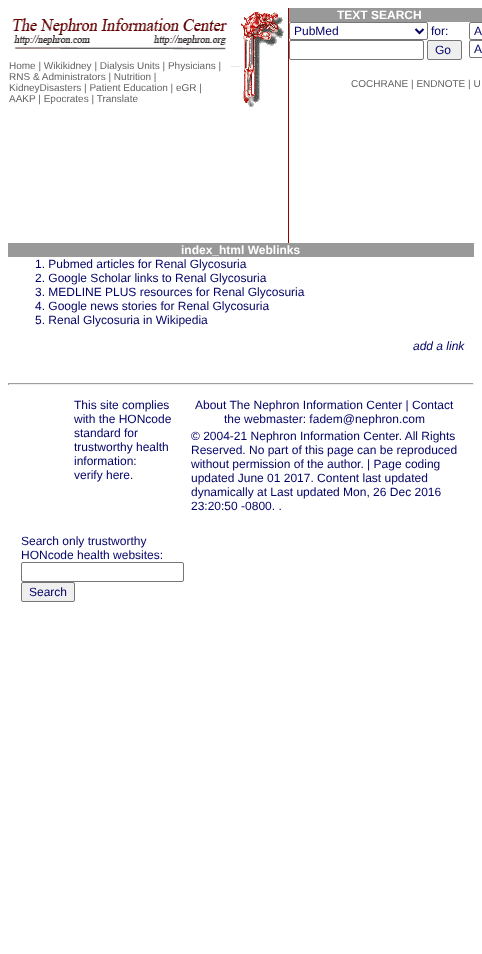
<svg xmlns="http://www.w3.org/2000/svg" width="482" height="954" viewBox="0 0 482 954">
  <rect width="100%" height="100%" fill="#fff"/>
  <image x="12" y="18" width="216" height="32" href="img/1.png"/>
  <image x="231" y="12" width="53" height="95" href="img/2.png"/>
  <path d="M288 8h1v235H288z" fill="#980000"/>
  <path d="M289 8h193v14H289z" fill="#999"/>
  <rect x="289.5" y="22.5" width="138" height="17" rx="1.5" fill="none" stroke="#767676"/>
  <path d="M415.5 29L419.5 33L423.5 29" fill="none" stroke="#006" stroke-width="2"/>
  <rect x="289.5" y="40.5" width="134" height="19" rx="1.5" fill="none" stroke="#767676"/>
  <rect x="427.5" y="40.5" width="34" height="19" rx="1.5" fill="#efefef" stroke="#767676"/>
  <rect x="469.5" y="22.5" width="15" height="17" rx="1.5" fill="none" stroke="#767676"/>
  <rect x="469.5" y="40.5" width="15" height="17" rx="1.5" fill="none" stroke="#767676"/>
  <path d="M8 243h466v14H8z" fill="#999"/>
  <path d="M8 383h466v1H8z" fill="#9f9f9f"/>
  <path d="M473 383h1v2H473z" fill="#eee"/>
  <path d="M8 384h466v1H8z" fill="#eee"/>
  <path d="M8 383h1v2H8z" fill="#9f9f9f"/>
  <rect x="21.5" y="562.5" width="162" height="19" rx="1.5" fill="none" stroke="#767676"/>
  <rect x="21.5" y="582.5" width="53" height="19" rx="1.5" fill="#efefef" stroke="#767676"/>
  <g font-family="Liberation Sans" font-size="10" fill="#636363">
    <text x="9" y="69">Home | Wikikidney | Dialysis Units | Physicians |</text>
    <text x="9" y="80">RNS &amp; Administrators | Nutrition |</text>
    <text x="9" y="91">KidneyDisasters | Patient Education | eGR |</text>
    <text x="9" y="102">AAKP | Epocrates | Translate</text>
  </g>
  <text x="337" y="19" font-family="Liberation Sans" font-size="12" font-weight="bold" fill="#fff">TEXT SEARCH</text>
  <g font-family="Liberation Sans" font-size="12" fill="#006">
    <text x="294" y="35">PubMed</text>
    <text x="431" y="35">for:</text>
    <text x="435" y="54">Go</text>
    <text x="474" y="35">A</text>
    <text x="474" y="53">A</text>
  </g>
  <text x="351" y="87" font-family="Liberation Sans" font-size="10" fill="#636363">COCHRANE | ENDNOTE | U</text>
  <text x="181" y="254" font-family="Liberation Sans" font-size="12" font-weight="bold" fill="#fff">index_html Weblinks</text>
  <g font-family="Liberation Sans" font-size="12" fill="#006">
    <text x="35" y="268">1. Pubmed articles for Renal Glycosuria</text>
    <text x="35" y="282">2. Google Scholar links to Renal Glycosuria</text>
    <text x="35" y="296">3. MEDLINE PLUS resources for Renal Glycosuria</text>
    <text x="35" y="310">4. Google news stories for Renal Glycosuria</text>
    <text x="35" y="324">5. Renal Glycosuria in Wikipedia</text>
  </g>
  <text x="413" y="350" font-family="Liberation Sans" font-size="12" font-style="italic" fill="#006">add a link</text>
  <g font-family="Liberation Sans" font-size="12" fill="#006">
    <text x="74" y="409">This site complies</text>
    <text x="74" y="423">with the HONcode</text>
    <text x="74" y="437">standard for</text>
    <text x="74" y="451">trustworthy health</text>
    <text x="74" y="465">information:</text>
    <text x="74" y="479">verify here.</text>
    <text x="21" y="545">Search only trustworthy</text>
    <text x="21" y="559">HONcode health websites:</text>
    <text x="29" y="596">Search</text>
    <text x="195" y="409">About The Nephron Information Center | Contact</text>
    <text x="224" y="423">the webmaster: fadem@nephron.com</text>
    <text x="191" y="440">© 2004-21 Nephron Information Center. All Rights</text>
    <text x="191" y="454">Reserved. No part of this page can be reproduced</text>
    <text x="191" y="468">without permission of the author. | Page coding</text>
    <text x="191" y="482">updated June 01 2017. Content last updated</text>
    <text x="191" y="496">dynamically at Last updated Mon, 26 Dec 2016</text>
    <text x="191" y="510">23:20:50 -0800. .</text>
  </g>
</svg>
